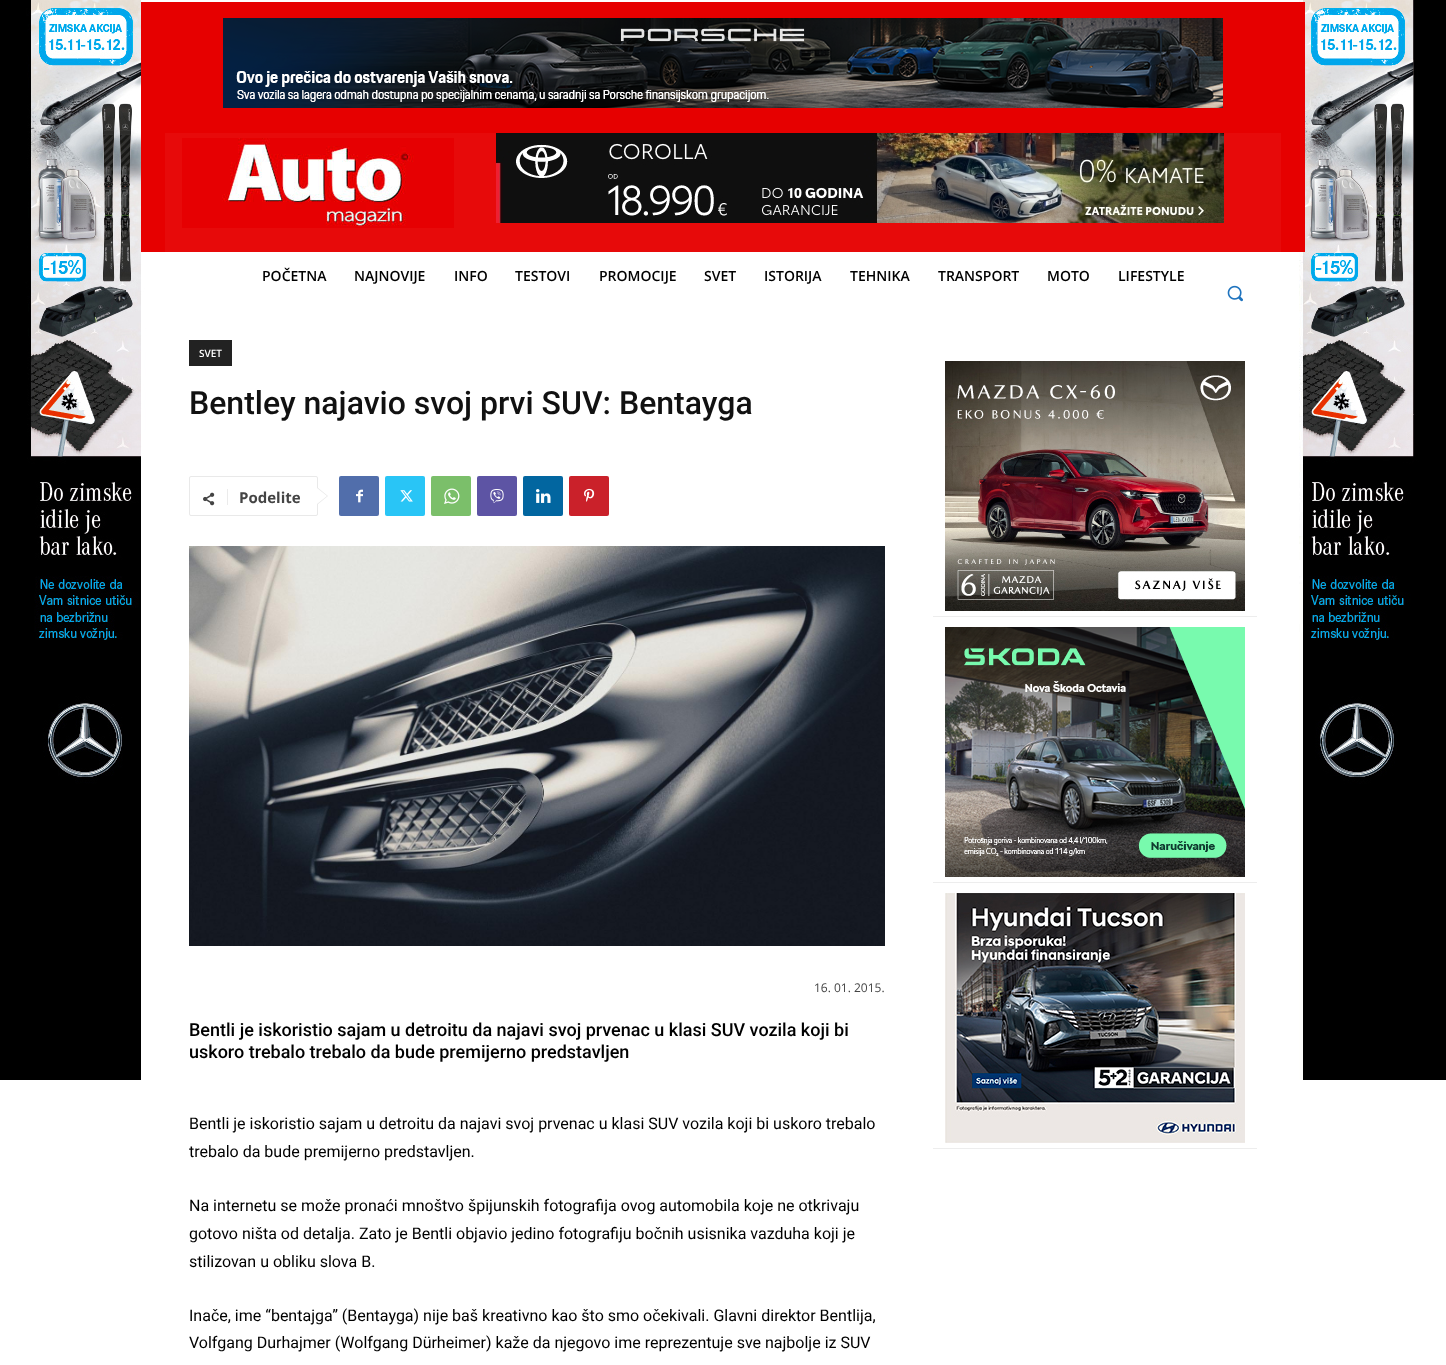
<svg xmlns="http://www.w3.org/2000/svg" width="1446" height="1365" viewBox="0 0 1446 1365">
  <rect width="100%" height="100%" fill="#fff"/>
  <image x="0" y="0" width="1446" height="1080" href="img/1.png"/>
  <path d="M141 2h1164v250H141z" fill="#e60000"/>
  <image x="223" y="18" width="1000" height="90" href="img/2.png"/>
  <path d="M165 133h1116v119H165z" fill="#ffffff0a"/>
  <image x="182" y="138" width="272" height="90" href="img/3.png"/>
  <image x="496" y="133" width="728" height="90" href="img/4.png"/>
  <image x="1227" y="285" width="16" height="17" href="img/5.png"/>
  <path d="M189 340h43v26H189z" fill="#222"/>
  <rect x="189.5" y="476.5" width="128" height="39" rx="1.5" fill="none" stroke="#e9e9e9"/>
  <path d="M317 505V487L328 496Z" fill="#e9e9e9"/>
  <image x="203" y="492" width="12" height="14" href="img/6.png"/>
  <path d="M227 489h1v16H227z" fill="#ebebeb"/>
  <path d="M317 504V488L327 496Z" fill="#fff"/>
  <rect x="339" y="476" width="40" height="40" rx="2" fill="#516eab"/>
  <image x="356" y="489" width="7" height="14" href="img/7.png"/>
  <rect x="385" y="476" width="40" height="40" rx="2" fill="#29c5f6"/>
  <image x="400" y="490" width="13" height="12" href="img/8.png"/>
  <rect x="431" y="476" width="40" height="40" rx="2" fill="#7bbf6a"/>
  <image x="444" y="488" width="16" height="16" href="img/9.png"/>
  <rect x="477" y="476" width="40" height="40" rx="2" fill="#5d54a4"/>
  <image x="490" y="489" width="14" height="14" href="img/10.png"/>
  <rect x="523" y="476" width="40" height="40" rx="2" fill="#0266a0"/>
  <image x="536" y="489" width="15" height="14" href="img/11.png"/>
  <rect x="569" y="476" width="40" height="40" rx="2" fill="#ca212a"/>
  <image x="584" y="488" width="11" height="14" href="img/12.png"/>
  <image x="189" y="546" width="696" height="400" href="img/13.png"/>
  <path d="M933 616h324v1H933z" fill="#ededed"/>
  <image x="945" y="361" width="300" height="250" href="img/14.png"/>
  <path d="M933 882h324v1H933z" fill="#ededed"/>
  <image x="945" y="627" width="300" height="250" href="img/15.png"/>
  <path d="M933 1148h324v1H933z" fill="#ededed"/>
  <image x="945" y="893" width="300" height="250" href="img/16.png"/>
  <g font-family="Open Sans" font-size="14" font-weight="600" fill="#000">
    <text x="262" y="281">POČETNA</text>
    <text x="354" y="281">NAJNOVIJE</text>
    <text x="454" y="281">INFO</text>
    <text x="515" y="281">TESTOVI</text>
    <text x="599" y="281">PROMOCIJE</text>
    <text x="704" y="281">SVET</text>
    <text x="764" y="281">ISTORIJA</text>
    <text x="850" y="281">TEHNIKA</text>
    <text x="938" y="281">TRANSPORT</text>
    <text x="1047" y="281">MOTO</text>
    <text x="1118" y="281">LIFESTYLE</text>
  </g>
  <text x="199" y="357" font-family="Open Sans" font-size="10" font-weight="600" fill="#fff">SVET</text>
  <text x="189" y="414" font-family="Roboto" font-size="32" font-weight="500" fill="#111">Bentley najavio svoj prvi SUV: Bentayga</text>
  <text x="239" y="503" font-family="Open Sans" font-size="15" font-weight="bold" fill="#444">Podelite</text>
  <text x="814" y="992" font-family="Open Sans" font-size="12" fill="#444">16. 01. 2015.</text>
  <g font-family="Roboto" font-size="18" font-weight="500" fill="#000">
    <text x="189" y="1036">Bentli je iskoristio sajam u detroitu da najavi svoj prvenac u klasi SUV vozila koji bi</text>
    <text x="189" y="1058">uskoro trebalo trebalo da bude premijerno predstavljen</text>
  </g>
  <g font-family="Roboto" font-size="16" fill="#000">
    <text x="189" y="1129">Bentli je iskoristio sajam u detroitu da najavi svoj prvenac u klasi SUV vozila koji bi uskoro trebalo</text>
    <text x="189" y="1157">trebalo da bude premijerno predstavljen.</text>
    <text x="189" y="1211">Na internetu se može pronaći mnoštvo špijunskih fotografija ovog automobila koje ne otkrivaju</text>
    <text x="189" y="1239">gotovo ništa od detalja. Zato je Bentli objavio jedino fotografiju bočnih usisnika vazduha koji je</text>
    <text x="189" y="1267">stilizovan u obliku slova B.</text>
    <text x="189" y="1321">Inače, ime “bentajga” (Bentayga) nije baš kreativno kao što smo očekivali. Glavni direktor Bentlija,</text>
    <text x="189" y="1348">Volfgang Durhajmer (Wolfgang Dürheimer) kaže da njegovo ime reprezentuje sve najbolje iz SUV</text>
  </g>
</svg>
